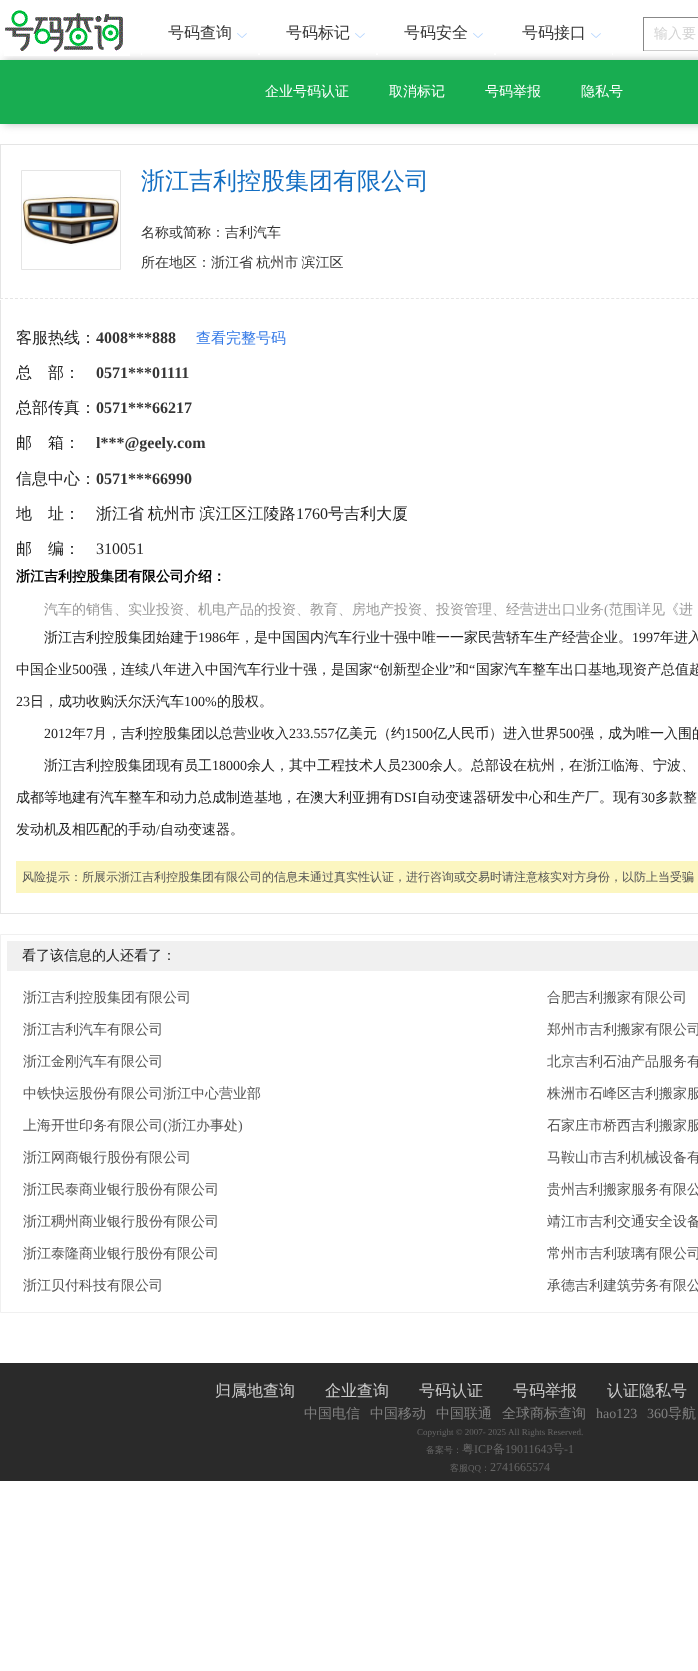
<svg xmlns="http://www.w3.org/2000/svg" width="698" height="1671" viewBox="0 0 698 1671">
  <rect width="100%" height="100%" fill="#fff"/>
  <path d="M4 60h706v64H4z" fill="#bdbdbd" filter="blur(4px)"/>
  <image x="4" y="10" width="126" height="46" href="img/1.png"/>
  <path d="M258 53h2v2H258z" fill="#fff"/>
  <path d="M141 53h1v2H141z" fill="#fff"/>
  <image x="237" y="33" width="10" height="5" href="img/2.png"/>
  <path d="M376 53h2v2H376z" fill="#fff"/>
  <image x="355" y="33" width="10" height="5" href="img/2.png"/>
  <path d="M494 53h2v2H494z" fill="#fff"/>
  <image x="473" y="33" width="10" height="5" href="img/2.png"/>
  <path d="M612 53h1v2H612z" fill="#fff"/>
  <image x="591" y="33" width="10" height="5" href="img/2.png"/>
  <path d="M643 17h55v1H643z" fill="#888"/>
  <path d="M643 50h55v1H643z" fill="#ccc"/>
  <path d="M643 17h1v34H643z" fill="#888"/>
  <path d="M0 60h698v64H0z" fill="#18ad51"/>
  <path d="M0 144h698v1H0z" fill="#e5e5e5"/>
  <path d="M0 144h1v154H0z" fill="#e5e5e5"/>
  <path d="M21.5 170.5h99v99H21.5z" fill="none" stroke="#e5e5e5"/>
  <image x="23" y="194" width="96" height="52" href="img/3.png"/>
  <path d="M0 298.5H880" fill="none" stroke="#e5e5e5" stroke-dasharray="3 2.01"/>
  <path d="M0 913h698v1H0z" fill="#e5e5e5"/>
  <path d="M0 300h1v614H0z" fill="#e5e5e5"/>
  <path d="M16 861h682v32H16z" fill="#fcf6c0"/>
  <path d="M0.5 934.5h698v378H0.5z" fill="none" stroke="#f0f0f0"/>
  <path d="M7 941h691v30H7z" fill="#f0f0f0"/>
  <path d="M0 1363h698v118H0z" fill="#2a2a2a"/>
  <g font-family="WenQuanYi Zen Hei" font-size="16" font-weight="500" fill="#363636">
    <text x="168" y="38">号码查询</text>
    <text x="286" y="38">号码标记</text>
    <text x="404" y="38">号码安全</text>
    <text x="522" y="38">号码接口</text>
  </g>
  <text x="654" y="38" font-family="WenQuanYi Zen Hei" font-size="14" font-weight="500" fill="#d3d3d3">输入要</text>
  <g font-family="WenQuanYi Zen Hei" font-size="14" font-weight="500" fill="#fff">
    <text x="265" y="96">企业号码认证</text>
    <text x="389" y="96">取消标记</text>
    <text x="485" y="96">号码举报</text>
    <text x="581" y="96">隐私号</text>
  </g>
  <text x="141" y="189" font-family="WenQuanYi Zen Hei" font-size="24" font-weight="500" fill="#136ec2">浙江吉利控股集团有限公司</text>
  <g font-family="WenQuanYi Zen Hei" font-size="14" font-weight="500" fill="#363636">
    <text x="141" y="237">名称或简称：吉利汽车</text>
    <text x="141" y="267" word-spacing="-1">所在地区：浙江省 杭州市 滨江区</text>
  </g>
  <text x="16" y="343" font-family="WenQuanYi Zen Hei" font-size="16" font-weight="500" fill="#222">客服热线：</text>
  <text x="96" y="343" font-family="Liberation Serif" font-size="16" font-weight="bold" fill="#363636">4008***888</text>
  <text x="196" y="343" font-family="WenQuanYi Zen Hei" font-size="15" font-weight="500" fill="#3278e6">查看完整号码</text>
  <text x="16" y="378" font-family="WenQuanYi Zen Hei" font-size="16" font-weight="500" fill="#222">总　部：</text>
  <text x="96" y="378" font-family="Liberation Serif" font-size="16" font-weight="bold" fill="#363636">0571***01111</text>
  <text x="16" y="413" font-family="WenQuanYi Zen Hei" font-size="16" font-weight="500" fill="#222">总部传真：</text>
  <text x="96" y="413" font-family="Liberation Serif" font-size="16" font-weight="bold" fill="#363636">0571***66217</text>
  <text x="16" y="448" font-family="WenQuanYi Zen Hei" font-size="16" font-weight="500" fill="#222">邮　箱：</text>
  <text x="96" y="448" font-family="Liberation Serif" font-size="16" font-weight="bold" fill="#363636">l***@geely.com</text>
  <text x="16" y="484" font-family="WenQuanYi Zen Hei" font-size="16" font-weight="500" fill="#222">信息中心：</text>
  <text x="96" y="484" font-family="Liberation Serif" font-size="16" font-weight="bold" fill="#363636">0571***66990</text>
  <g font-family="WenQuanYi Zen Hei" font-size="16" font-weight="500" fill="#222">
    <text x="16" y="519">地　址：</text>
    <text x="96" y="519" word-spacing="-1">浙江省 杭州市 滨江区江陵路</text>
  </g>
  <text x="296" y="519" font-family="Liberation Serif" font-size="16" fill="#222">1760</text>
  <g font-family="WenQuanYi Zen Hei" font-size="16" font-weight="500" fill="#222">
    <text x="328" y="519">号吉利大厦</text>
    <text x="16" y="554">邮　编：</text>
  </g>
  <text x="96" y="554" font-family="Liberation Serif" font-size="16" fill="#222">310051</text>
  <text x="16" y="581" font-family="WenQuanYi Zen Hei" font-size="14" font-weight="bold" fill="#000">浙江吉利控股集团有限公司介绍：</text>
  <text x="44" y="614" font-family="WenQuanYi Zen Hei" font-size="14" font-weight="500" fill="#999">汽车的销售、实业投资、机电产品的投资、教育、房地产投资、投资管理、经营进出口业务</text>
  <text x="604" y="614" font-family="Liberation Serif" font-size="14" fill="#999">(</text>
  <text x="609" y="614" font-family="WenQuanYi Zen Hei" font-size="14" font-weight="500" fill="#999">范围详见《进</text>
  <text x="44" y="642" font-family="WenQuanYi Zen Hei" font-size="14" font-weight="500" fill="#222">浙江吉利控股集团始建于</text>
  <text x="198" y="642" font-family="Liberation Serif" font-size="14" fill="#222">1986</text>
  <text x="226" y="642" font-family="WenQuanYi Zen Hei" font-size="14" font-weight="500" fill="#222">年，是中国国内汽车行业十强中唯一一家民营轿车生产经营企业。</text>
  <text x="632" y="642" font-family="Liberation Serif" font-size="14" fill="#222">1997</text>
  <g font-family="WenQuanYi Zen Hei" font-size="14" font-weight="500" fill="#222">
    <text x="660" y="642">年进入</text>
    <text x="16" y="674">中国企业</text>
  </g>
  <text x="72" y="674" font-family="Liberation Serif" font-size="14" fill="#222">500</text>
  <text x="93" y="674" font-family="WenQuanYi Zen Hei" font-size="14" font-weight="500" fill="#222">强，连续八年进入中国汽车行业十强，是国家</text>
  <text x="373" y="674" font-family="Liberation Serif" font-size="14" fill="#222">“</text>
  <text x="379" y="674" font-family="WenQuanYi Zen Hei" font-size="14" font-weight="500" fill="#222">创新型企业</text>
  <text x="449" y="674" font-family="Liberation Serif" font-size="14" fill="#222">”</text>
  <text x="455" y="674" font-family="WenQuanYi Zen Hei" font-size="14" font-weight="500" fill="#222">和</text>
  <text x="469" y="674" font-family="Liberation Serif" font-size="14" fill="#222">“</text>
  <g font-family="WenQuanYi Zen Hei" font-size="14" font-weight="500" fill="#222">
    <text x="476" y="674">国家汽车整车出口基地</text>
    <text x="619" y="674">现资产总值超</text>
  </g>
  <g font-family="Liberation Serif" font-size="14" fill="#222">
    <text x="616" y="674">,</text>
    <text x="16" y="706">23</text>
  </g>
  <text x="30" y="706" font-family="WenQuanYi Zen Hei" font-size="14" font-weight="500" fill="#222">日，成功收购沃尔沃汽车</text>
  <text x="184" y="706" font-family="Liberation Serif" font-size="14" fill="#222">100%</text>
  <text x="217" y="706" font-family="WenQuanYi Zen Hei" font-size="14" font-weight="500" fill="#222">的股权。</text>
  <text x="44" y="738" font-family="Liberation Serif" font-size="14" fill="#222">2012</text>
  <text x="72" y="738" font-family="WenQuanYi Zen Hei" font-size="14" font-weight="500" fill="#222">年</text>
  <text x="86" y="738" font-family="Liberation Serif" font-size="14" fill="#222">7</text>
  <text x="93" y="738" font-family="WenQuanYi Zen Hei" font-size="14" font-weight="500" fill="#222">月，吉利控股集团以总营业收入</text>
  <text x="289" y="738" font-family="Liberation Serif" font-size="14" fill="#222">233.557</text>
  <text x="335" y="738" font-family="WenQuanYi Zen Hei" font-size="14" font-weight="500" fill="#222">亿美元（约</text>
  <text x="405" y="738" font-family="Liberation Serif" font-size="14" fill="#222">1500</text>
  <text x="433" y="738" font-family="WenQuanYi Zen Hei" font-size="14" font-weight="500" fill="#222">亿人民币）进入世界</text>
  <text x="559" y="738" font-family="Liberation Serif" font-size="14" fill="#222">500</text>
  <g font-family="WenQuanYi Zen Hei" font-size="14" font-weight="500" fill="#222">
    <text x="580" y="738">强，成为唯一入围的</text>
    <text x="44" y="770">浙江吉利控股集团现有员工</text>
  </g>
  <text x="212" y="770" font-family="Liberation Serif" font-size="14" fill="#222">18000</text>
  <text x="247" y="770" font-family="WenQuanYi Zen Hei" font-size="14" font-weight="500" fill="#222">余人，其中工程技术人员</text>
  <text x="401" y="770" font-family="Liberation Serif" font-size="14" fill="#222">2300</text>
  <g font-family="WenQuanYi Zen Hei" font-size="14" font-weight="500" fill="#222">
    <text x="429" y="770">余人。总部设在杭州，在浙江临海、宁波、</text>
    <text x="16" y="802">成都等地建有汽车整车和动力总成制造基地，在澳大利亚拥有</text>
  </g>
  <text x="394" y="802" font-family="Liberation Serif" font-size="14" fill="#222">DSI</text>
  <text x="417" y="802" font-family="WenQuanYi Zen Hei" font-size="14" font-weight="500" fill="#222">自动变速器研发中心和生产厂。现有</text>
  <text x="641" y="802" font-family="Liberation Serif" font-size="14" fill="#222">30</text>
  <g font-family="WenQuanYi Zen Hei" font-size="14" font-weight="500" fill="#222">
    <text x="655" y="802">多款整</text>
    <text x="16" y="834">发动机及相匹配的手动</text>
  </g>
  <text x="156" y="834" font-family="Liberation Serif" font-size="14" fill="#222">/</text>
  <text x="160" y="834" font-family="WenQuanYi Zen Hei" font-size="14" font-weight="500" fill="#222">自动变速器。</text>
  <text x="22" y="881" font-family="WenQuanYi Zen Hei" font-size="12" font-weight="500" fill="#555">风险提示：所展示浙江吉利控股集团有限公司的信息未通过真实性认证，进行咨询或交易时请注意核实对方身份，以防上当受骗</text>
  <text x="22" y="960" font-family="WenQuanYi Zen Hei" font-size="14" font-weight="500" fill="#222">看了该信息的人还看了：</text>
  <g font-family="WenQuanYi Zen Hei" font-size="14" font-weight="500" fill="#555">
    <text x="23" y="1002">浙江吉利控股集团有限公司</text>
    <text x="23" y="1034">浙江吉利汽车有限公司</text>
    <text x="23" y="1066">浙江金刚汽车有限公司</text>
    <text x="23" y="1098">中铁快运股份有限公司浙江中心营业部</text>
    <text x="23" y="1130">上海开世印务有限公司</text>
  </g>
  <text x="163" y="1130" font-family="Liberation Serif" font-size="14" fill="#555">(</text>
  <text x="168" y="1130" font-family="WenQuanYi Zen Hei" font-size="14" font-weight="500" fill="#555">浙江办事处</text>
  <text x="238" y="1130" font-family="Liberation Serif" font-size="14" fill="#555">)</text>
  <g font-family="WenQuanYi Zen Hei" font-size="14" font-weight="500" fill="#555">
    <text x="23" y="1162">浙江网商银行股份有限公司</text>
    <text x="23" y="1194">浙江民泰商业银行股份有限公司</text>
    <text x="23" y="1226">浙江稠州商业银行股份有限公司</text>
    <text x="23" y="1258">浙江泰隆商业银行股份有限公司</text>
    <text x="23" y="1290">浙江贝付科技有限公司</text>
    <text x="547" y="1002">合肥吉利搬家有限公司</text>
    <text x="547" y="1034">郑州市吉利搬家有限公司</text>
    <text x="547" y="1066">北京吉利石油产品服务有</text>
    <text x="547" y="1098">株洲市石峰区吉利搬家服</text>
    <text x="547" y="1130">石家庄市桥西吉利搬家服</text>
    <text x="547" y="1162">马鞍山市吉利机械设备有</text>
    <text x="547" y="1194">贵州吉利搬家服务有限公</text>
    <text x="547" y="1226">靖江市吉利交通安全设备</text>
    <text x="547" y="1258">常州市吉利玻璃有限公司</text>
    <text x="547" y="1290">承德吉利建筑劳务有限公</text>
  </g>
  <g font-family="WenQuanYi Zen Hei" font-size="16" font-weight="500" fill="#ccc">
    <text x="215" y="1396">归属地查询</text>
    <text x="325" y="1396">企业查询</text>
    <text x="419" y="1396">号码认证</text>
    <text x="513" y="1396">号码举报</text>
    <text x="607" y="1396">认证隐私号</text>
  </g>
  <g font-family="WenQuanYi Zen Hei" font-size="14" font-weight="500" fill="#808080">
    <text x="304" y="1418">中国电信</text>
    <text x="370" y="1418">中国移动</text>
    <text x="436" y="1418">中国联通</text>
    <text x="502" y="1418">全球商标查询</text>
  </g>
  <g font-family="Liberation Serif" font-size="14" fill="#808080">
    <text x="596" y="1418">hao123</text>
    <text x="647" y="1418">360</text>
  </g>
  <text x="668" y="1418" font-family="WenQuanYi Zen Hei" font-size="14" font-weight="500" fill="#808080">导航</text>
  <g font-family="Liberation Serif" font-size="9" fill="#666">
    <text x="417" y="1435">Copyright © 2007- 2025</text>
    <text x="508" y="1435">All Rights Reserved.</text>
  </g>
  <text x="426" y="1453" font-family="WenQuanYi Zen Hei" font-size="9" font-weight="500" fill="#666">备案号：</text>
  <text x="462" y="1453" font-family="WenQuanYi Zen Hei" font-size="12" font-weight="500" fill="#666">粤</text>
  <text x="474" y="1453" font-family="Liberation Serif" font-size="12" fill="#666">ICP</text>
  <text x="493" y="1453" font-family="WenQuanYi Zen Hei" font-size="12" font-weight="500" fill="#666">备</text>
  <text x="505" y="1453" font-family="Liberation Serif" font-size="12" fill="#666">19011643</text>
  <text x="552" y="1453" font-family="WenQuanYi Zen Hei" font-size="12" font-weight="500" fill="#666">号</text>
  <text x="564" y="1453" font-family="Liberation Serif" font-size="12" fill="#666">-1</text>
  <text x="450" y="1471" font-family="WenQuanYi Zen Hei" font-size="9" font-weight="500" fill="#666">客服</text>
  <text x="468" y="1471" font-family="Liberation Serif" font-size="9" fill="#666">QQ</text>
  <text x="481" y="1471" font-family="WenQuanYi Zen Hei" font-size="9" font-weight="500" fill="#666">：</text>
  <text x="490" y="1471" font-family="Liberation Serif" font-size="12" fill="#666">2741665574</text>
</svg>
